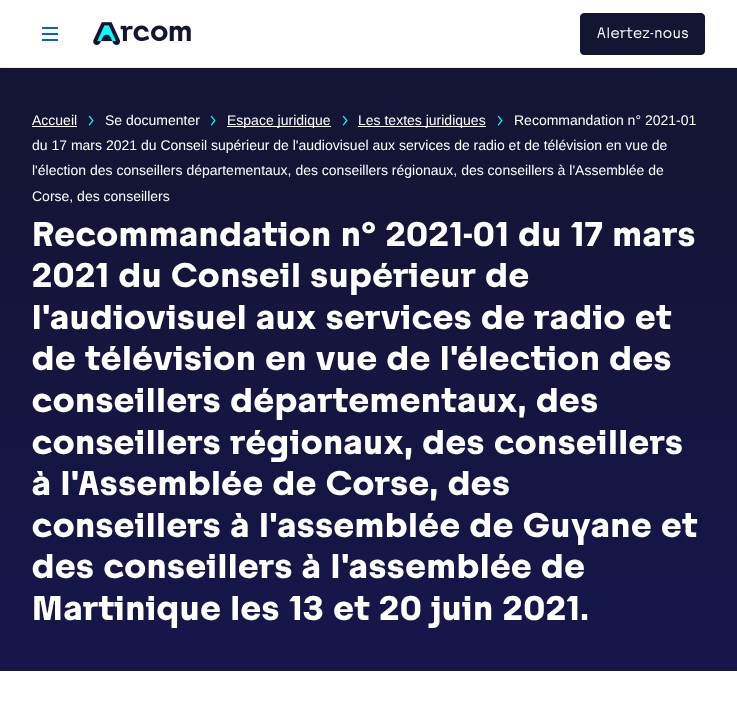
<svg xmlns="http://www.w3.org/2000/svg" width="737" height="718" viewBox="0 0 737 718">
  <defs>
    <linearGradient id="g1" gradientUnits="userSpaceOnUse" x1="368" y1="68" x2="369" y2="671"><stop offset="0" stop-color="#141433"/><stop offset="1" stop-color="#16164b"/></linearGradient>
    <clipPath id="clip1"><path d="M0 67h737v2H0z"/></clipPath>
  </defs>
  <rect width="100%" height="100%" fill="#fff"/>
  <path d="M0 68h737v603H0z" fill="url(#g1)"/>
  <g clip-path="url(#clip1)">
    <path d="M0 1h737v67H0z" fill="#0000001a" filter="blur(1px)"/>
  </g>
  <image x="42" y="27" width="16" height="14" href="img/1.png"/>
  <image x="93" y="22" width="98" height="23" href="img/2.png"/>
  <rect x="580.5" y="13.5" width="124" height="41" rx="3.5" fill="#141433" stroke="#141433"/>
  <path d="M32 126h45v1H32z" fill="#fff"/>
  <image x="88" y="115" width="6" height="11" href="img/3.png"/>
  <image x="210" y="115" width="6" height="11" href="img/3.png"/>
  <path d="M227 126h104v1H227z" fill="#fff"/>
  <image x="342" y="115" width="6" height="11" href="img/3.png"/>
  <path d="M358 126h128v1H358z" fill="#fff"/>
  <image x="497" y="115" width="6" height="11" href="img/3.png"/>
  <text x="597" y="38" font-family="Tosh" font-size="14" letter-spacing="0.75" fill="#fff">Alertez-nous</text>
  <g font-family="Liberation Sans" font-size="14" fill="#fff">
    <text x="32" y="125">Accueil</text>
    <text x="105" y="125">Se documenter</text>
    <text x="227" y="125">Espace juridique</text>
    <text x="358" y="125">Les textes juridiques</text>
    <text x="514" y="125">Recommandation n° 2021-01</text>
    <text x="32" y="150">du 17 mars 2021 du Conseil supérieur de l'audiovisuel aux services de radio et de télévision en vue de</text>
    <text x="32" y="175">l'élection des conseillers départementaux, des conseillers régionaux, des conseillers à l'Assemblée de</text>
    <text x="32" y="201">Corse, des conseillers</text>
  </g>
  <g font-family="Tosh" font-size="32" font-weight="bold" letter-spacing="0.95" fill="#fff">
    <text x="32" y="246">Recommandation n° 2021-01 du 17 mars</text>
    <text x="32" y="287">2021 du Conseil supérieur de</text>
    <text x="32" y="329">l'audiovisuel aux services de radio et</text>
    <text x="32" y="370">de télévision en vue de l'élection des</text>
    <text x="32" y="412">conseillers départementaux, des</text>
    <text x="32" y="454">conseillers régionaux, des conseillers</text>
    <text x="32" y="495">à l'Assemblée de Corse, des</text>
    <text x="32" y="537">conseillers à l'assemblée de Guyane et</text>
    <text x="32" y="578">des conseillers à l'assemblée de</text>
    <text x="32" y="620">Martinique les 13 et 20 juin 2021.</text>
  </g>
</svg>
